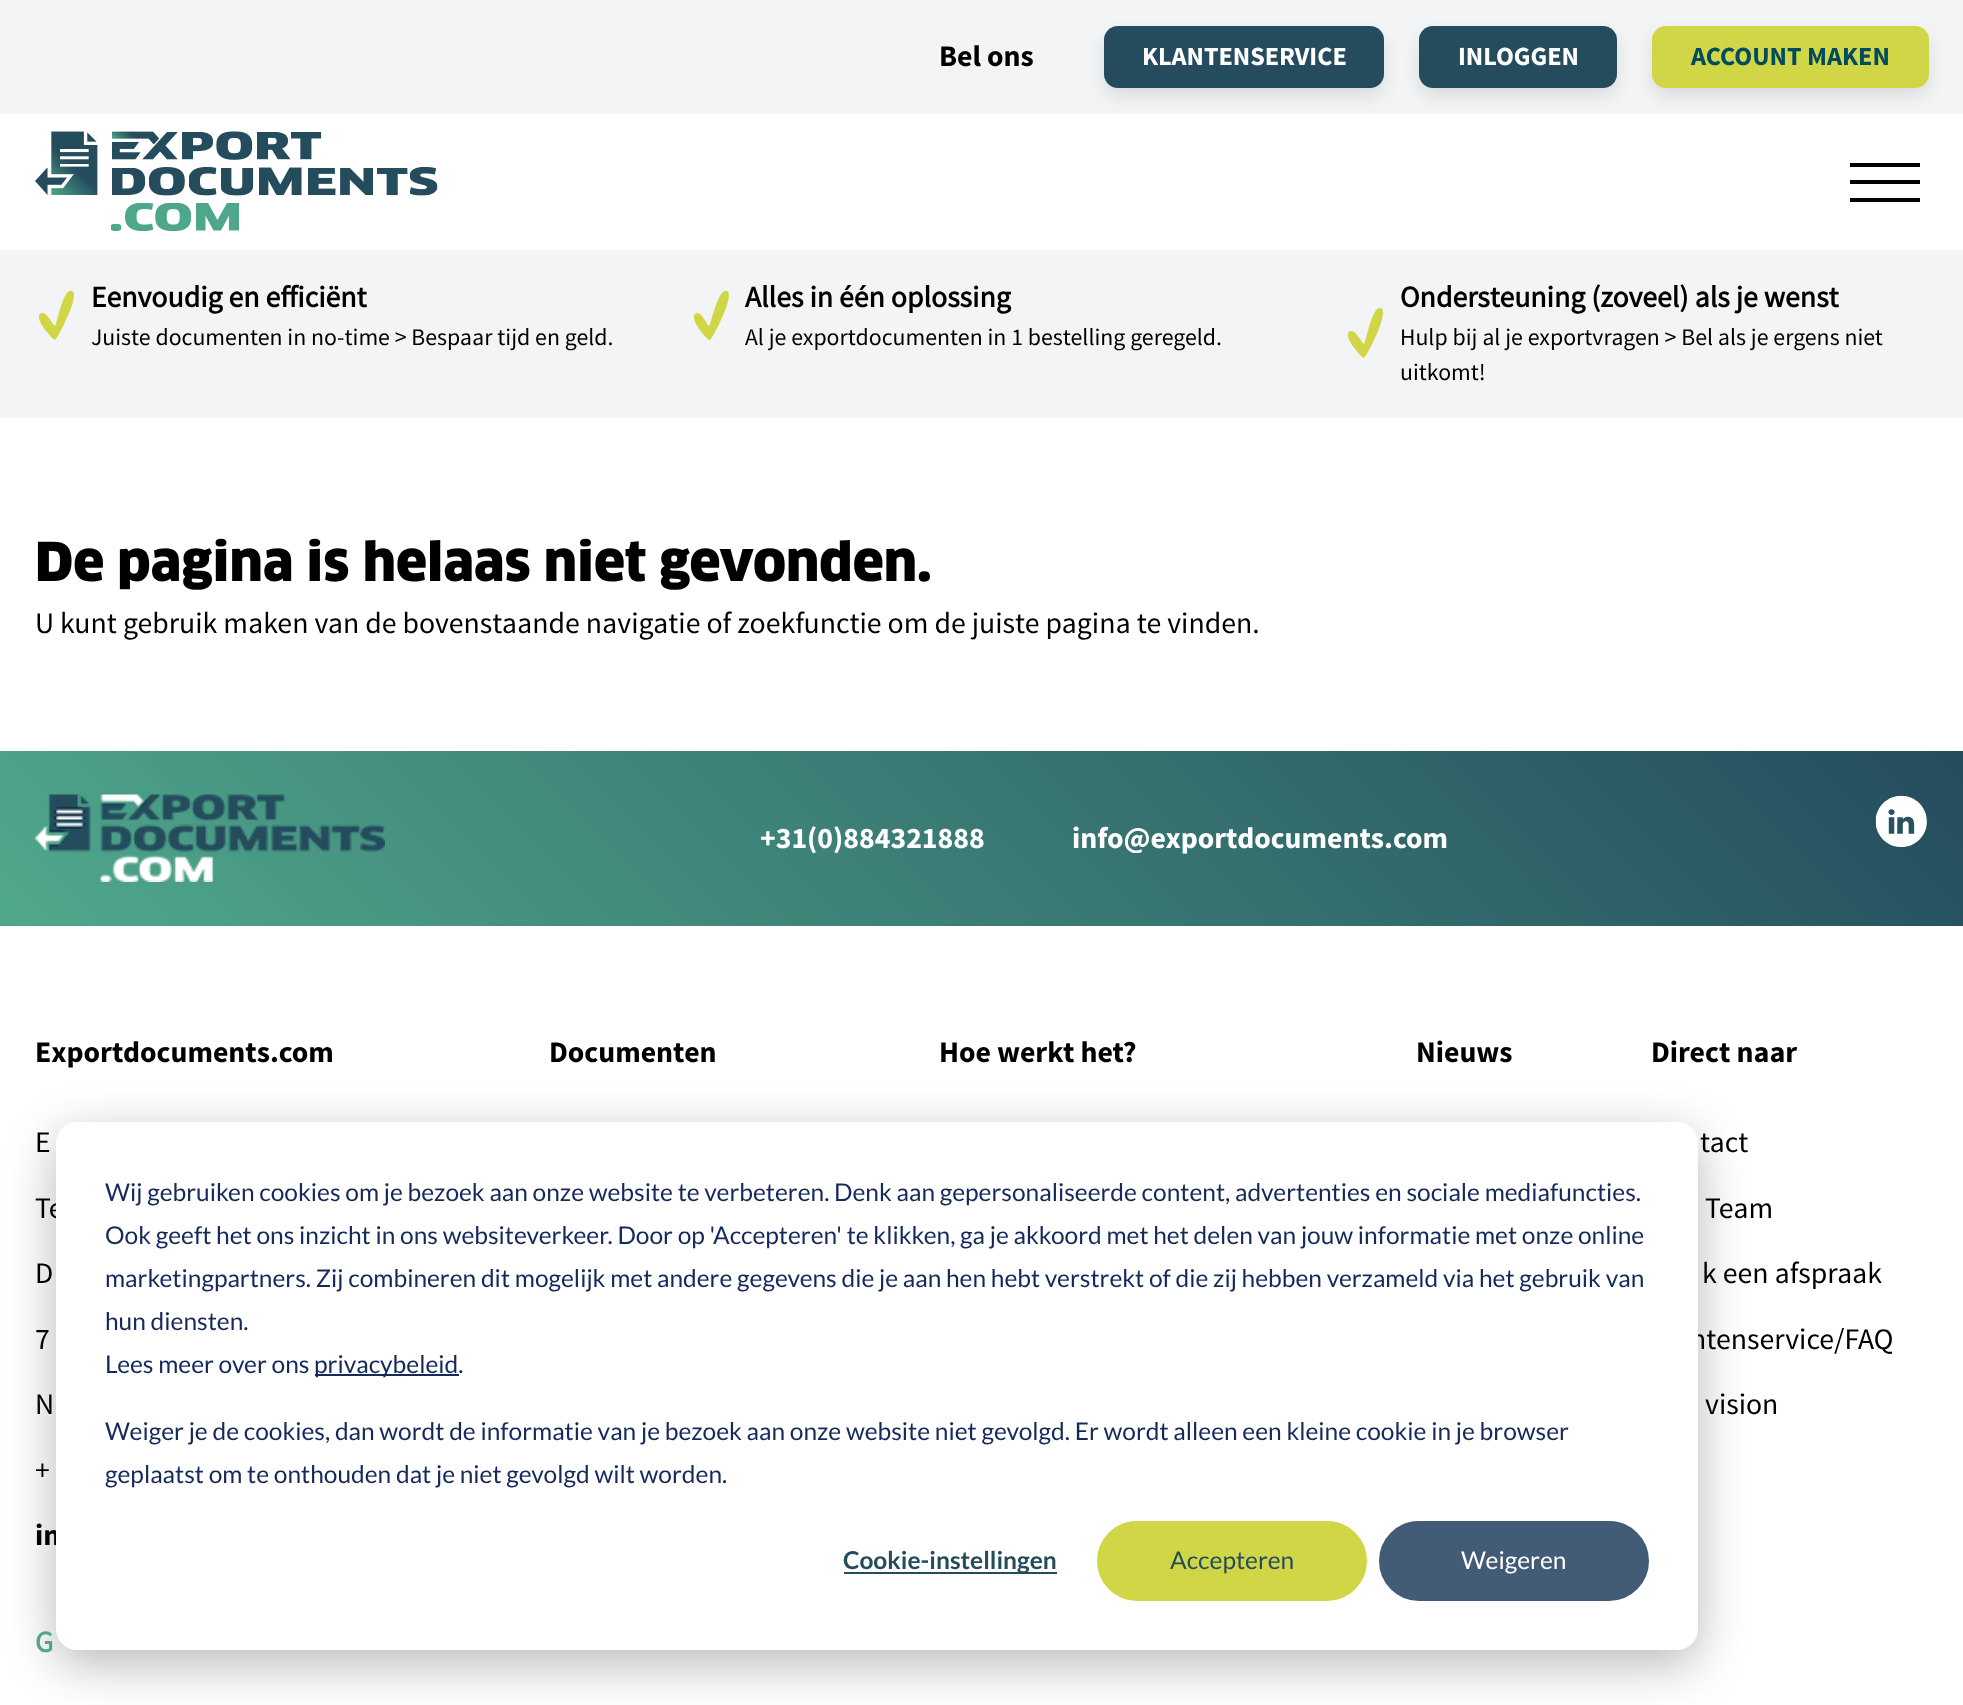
<svg xmlns="http://www.w3.org/2000/svg" width="1963" height="1705" viewBox="0 0 1963 1705">
  <defs>
    <linearGradient id="g1" gradientUnits="userSpaceOnUse" x1="447" y1="1373" x2="1516" y2="304"><stop offset="0.01" stop-color="#4fa78b"/><stop offset="1" stop-color="#244c5d"/></linearGradient>
  </defs>
  <rect width="100%" height="100%" fill="#fff"/>
  <path d="M0 0h1963v114H0z" fill="#f3f4f5"/>
  <rect x="1104" y="35" width="280" height="61" rx="14" fill="#0000001a" filter="blur(9px)"/>
  <rect x="1104" y="26" width="280" height="62" rx="14" fill="#244c5d"/>
  <rect x="1419" y="35" width="198" height="61" rx="14" fill="#0000001a" filter="blur(9px)"/>
  <rect x="1419" y="26" width="198" height="62" rx="14" fill="#244c5d"/>
  <rect x="1652" y="35" width="277" height="61" rx="14" fill="#0000001a" filter="blur(9px)"/>
  <rect x="1652" y="26" width="277" height="62" rx="14" fill="#d0d646"/>
  <image x="35" y="131" width="403" height="100" href="img/1.png"/>
  <path d="M1850 163h70v4H1850z" fill="#000"/>
  <path d="M1850 180h70v4H1850z" fill="#000"/>
  <path d="M1850 198h70v4H1850z" fill="#000"/>
  <path d="M0 250h1963v168H0z" fill="#f3f4f5"/>
  <path d="M55 340C57 340 81 294 72 291C63 287 57 325 55 326C53 326 46 309 40 314C34 319 53 340 55 340Z" fill="#d0d646"/>
  <path d="M710 340C712 340 736 294 727 291C718 287 711 325 709 326C707 326 701 309 695 314C689 319 707 340 710 340Z" fill="#d0d646"/>
  <path d="M1364 358C1366 358 1390 312 1381 308C1372 305 1366 343 1364 344C1362 344 1355 327 1349 332C1343 337 1362 358 1364 358Z" fill="#d0d646"/>
  <path d="M0 751h1963v175H0z" fill="url(#g1)"/>
  <image x="35" y="794" width="350" height="88" href="img/2.png"/>
  <image x="1875" y="795" width="52" height="52" href="img/3.png"/>
  <rect x="56" y="1136" width="1642" height="528" rx="21" fill="#00000047" filter="blur(24.5px)"/>
  <text x="939" y="66" font-family="'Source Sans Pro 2'" font-size="29.75" font-weight="bold" fill="#000">Bel ons</text>
  <g font-family="'Source Sans Pro 2'" font-size="26.25" font-weight="bold" fill="#fff">
    <text x="1142" y="65">KLANTENSERVICE</text>
    <text x="1458" y="65">INLOGGEN</text>
  </g>
  <text x="1691" y="65" font-family="'Source Sans Pro 2'" font-size="26.25" font-weight="bold" fill="#004b5d">ACCOUNT MAKEN</text>
  <text x="91" y="307" font-family="Source Sans Pro" font-size="29.75" font-weight="bold" fill="#000">Eenvoudig en efficiënt</text>
  <text x="91" y="345" font-family="Source Sans Pro" font-size="23.8" fill="#000">Juiste documenten in no-time &gt; Bespaar tijd en geld.</text>
  <text x="745" y="307" font-family="Source Sans Pro" font-size="29.75" font-weight="bold" fill="#000">Alles in één oplossing</text>
  <text x="745" y="345" font-family="Source Sans Pro" font-size="23.8" fill="#000">Al je exportdocumenten in 1 bestelling geregeld.</text>
  <text x="1400" y="307" font-family="Source Sans Pro" font-size="29.75" font-weight="bold" fill="#000">Ondersteuning (zoveel) als je wenst</text>
  <g font-family="Source Sans Pro" font-size="23.8" fill="#000">
    <text x="1400" y="345">Hulp bij al je exportvragen &gt; Bel als je ergens niet</text>
    <text x="1400" y="380">uitkomt!</text>
  </g>
  <text x="35" y="581" font-family="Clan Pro" font-size="52.5" font-weight="900" fill="#000">De pagina is helaas niet gevonden.</text>
  <text x="35" y="633" font-family="Source Sans Pro" font-size="29.75" fill="#000">U kunt gebruik maken van de bovenstaande navigatie of zoekfunctie om de juiste pagina te vinden.</text>
  <g font-family="'Source Sans Pro 2'" font-size="29.75" font-weight="bold" fill="#fff">
    <text x="760" y="848">+31(0)884321888</text>
    <text x="1072" y="848">info@exportdocuments.com</text>
  </g>
  <text x="35" y="1062" font-family="'Source Sans Pro 2'" font-size="29.75" font-weight="bold" fill="#000">Exportdocuments.com</text>
  <g font-family="Source Sans Pro" font-size="29.75" fill="#000">
    <text x="35" y="1152">E</text>
    <text x="35" y="1218">Te</text>
    <text x="35" y="1283">D</text>
    <text x="35" y="1349">7</text>
    <text x="35" y="1414">N</text>
    <text x="35" y="1480">+</text>
  </g>
  <g font-family="'Source Sans Pro 2'" font-size="29.75" font-weight="bold" fill="#000">
    <text x="35" y="1545">in</text>
    <text x="549" y="1062">Documenten</text>
    <text x="939" y="1062">Hoe werkt het?</text>
    <text x="1416" y="1062">Nieuws</text>
    <text x="1651" y="1062">Direct naar</text>
  </g>
  <g font-family="Source Sans Pro" font-size="29.75" fill="#000">
    <text x="1700" y="1152">tact</text>
    <text x="1705" y="1218">Team</text>
    <text x="1702" y="1283">k een afspraak</text>
    <text x="1690" y="1349">ntenservice/FAQ</text>
    <text x="1705" y="1414">vision</text>
  </g>
  <text x="35" y="1652" font-family="Source Sans Pro" font-size="29.75" font-weight="bold" fill="#4fa78b">G</text>
  <rect x="56" y="1122" width="1642" height="528" rx="21" fill="#fff"/>
  <g font-family="Lato" font-size="24.5" fill="#15295a">
    <text x="105" y="1201">Wij gebruiken cookies om je bezoek aan onze website te verbeteren. Denk aan gepersonaliseerde content, advertenties en sociale mediafuncties.</text>
    <text x="105" y="1244">Ook geeft het ons inzicht in ons websiteverkeer. Door op 'Accepteren' te klikken, ga je akkoord met het delen van jouw informatie met onze online</text>
    <text x="105" y="1287">marketingpartners. Zij combineren dit mogelijk met andere gegevens die je aan hen hebt verstrekt of die zij hebben verzameld via het gebruik van</text>
    <text x="105" y="1330">hun diensten.</text>
    <text x="105" y="1373">Lees meer over ons</text>
  </g>
  <path d="M315 1374h144v2H315z" fill="#15295a"/>
  <g font-family="Lato" font-size="24.5" fill="#15295a">
    <text x="314" y="1373">privacybeleid.</text>
    <text x="105" y="1440">Weiger je de cookies, dan wordt de informatie van je bezoek aan onze website niet gevolgd. Er wordt alleen een kleine cookie in je browser</text>
    <text x="105" y="1483">geplaatst om te onthouden dat je niet gevolgd wilt worden.</text>
  </g>
  <path d="M844 1572h213v2H844z" fill="#244c5d"/>
  <text x="843" y="1569" font-family="Lato" font-size="24.5" font-weight="bold" fill="#244c5d">Cookie-instellingen</text>
  <rect x="1098" y="1522" width="268" height="78" rx="39" fill="#d0d646" stroke="#d0d646" stroke-width="2"/>
  <text x="1170" y="1569" font-family="Lato" font-size="24.5" fill="#244c5d">Accepteren</text>
  <rect x="1380" y="1522" width="268" height="78" rx="39" fill="#425b76" stroke="#425b76" stroke-width="2"/>
  <text x="1461" y="1569" font-family="Lato" font-size="24.5" fill="#fff">Weigeren</text>
</svg>
